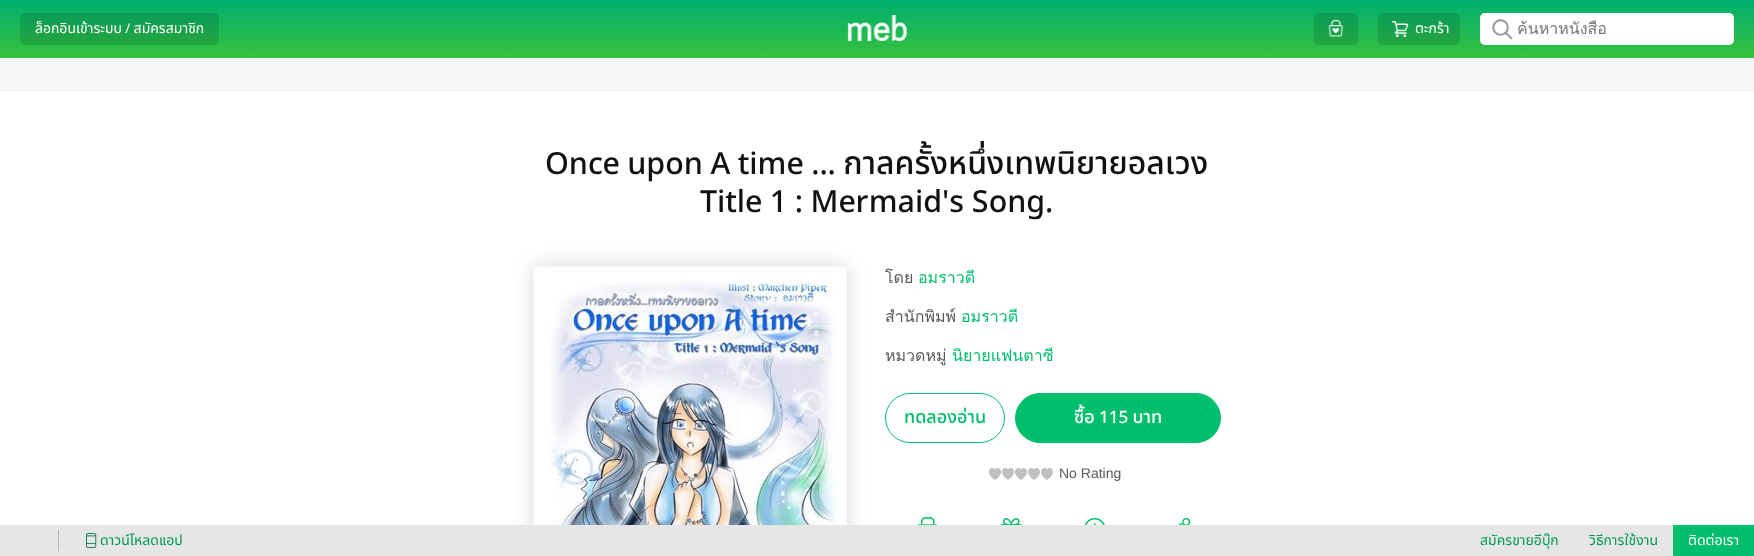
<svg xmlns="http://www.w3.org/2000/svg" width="1754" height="556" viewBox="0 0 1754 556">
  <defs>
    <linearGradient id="g1" gradientUnits="userSpaceOnUse" x1="877" y1="0" x2="877" y2="58"><stop offset="0" stop-color="#00af70"/><stop offset="1" stop-color="#37c13d"/></linearGradient>
    <clipPath id="clip1"><path d="M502 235H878V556H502ZM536 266H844C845.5 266 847 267.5 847 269V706C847 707.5 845.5 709 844 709H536C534.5 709 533 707.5 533 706V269C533 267.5 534.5 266 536 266Z" clip-rule="evenodd"/></clipPath>
    <clipPath id="clip2"><path d="M1517 16h207v25H1517z"/></clipPath>
  </defs>
  <rect width="100%" height="100%" fill="#fff"/>
  <path d="M0 0h1754v58H0z" fill="url(#g1)"/>
  <rect x="20" y="13" width="199" height="32" rx="5" fill="#0000001f"/>
  <image x="847" y="15" width="60" height="26" href="img/1.png"/>
  <rect x="1314" y="13" width="44" height="32" rx="5" fill="#0000001f"/>
  <image x="1328" y="20" width="16" height="17" href="img/2.png"/>
  <rect x="1378" y="13" width="82" height="32" rx="5" fill="#0000001f"/>
  <image x="1392" y="21" width="17" height="17" href="img/3.png"/>
  <rect x="1480" y="13" width="254" height="32" rx="5" fill="#fff"/>
  <image x="1492" y="19" width="21" height="21" href="img/4.png"/>
  <path d="M0 58h1754v34H0z" fill="#f6f6f6"/>
  <g clip-path="url(#clip1)">
    <rect x="533" y="266" width="314" height="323" rx="3" fill="#00000026" filter="blur(10px)"/>
  </g>
  <rect x="533.5" y="266.5" width="313" height="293" rx="2.5" fill="none" stroke="#f6f6f6"/>
  <image x="550" y="281" width="288" height="244" href="img/5.png"/>
  <rect x="885.5" y="393.5" width="119" height="49" rx="24.5" fill="none" stroke="#00bf6c"/>
  <rect x="1015.5" y="393.5" width="205" height="49" rx="24.5" fill="#00bf6c" stroke="#00bf6c"/>
  <image x="989" y="468" width="12" height="12" href="img/6.png"/>
  <image x="1002" y="468" width="12" height="12" href="img/6.png"/>
  <image x="1015" y="468" width="12" height="12" href="img/6.png"/>
  <image x="1028" y="468" width="12" height="12" href="img/6.png"/>
  <image x="1041" y="468" width="12" height="12" href="img/6.png"/>
  <image x="917" y="517" width="21" height="8" href="img/7.png"/>
  <image x="1000" y="518" width="23" height="7" href="img/8.png"/>
  <image x="1084" y="518" width="21" height="7" href="img/9.png"/>
  <image x="1178" y="518" width="13" height="7" href="img/10.png"/>
  <path d="M0 525h1673v31H0z" fill="#e6e6e6"/>
  <path d="M58 530h1v21H58z" fill="#b8b8b8"/>
  <image x="86" y="533" width="11" height="15" href="img/11.png"/>
  <path d="M1673 525h81v31H1673z" fill="#00bf6c"/>
  <g font-family="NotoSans" font-size="14" fill="#fff">
    <text x="35" y="33">ล็อกอินเข้าระบบ / สมัครสมาชิก</text>
    <text x="1415" y="33">ตะกร้า</text>
  </g>
  <g clip-path="url(#clip2)">
    <text x="1517" y="34" font-family="Loma" font-size="16" fill="#777">ค้นหาหนังสือ</text>
  </g>
  <g font-family="NotoSans" font-size="32" font-weight="500" fill="#111">
    <text x="545" y="174">Once upon A time ... กาลครั้งหนึ่งเทพนิยายอลเวง</text>
    <text x="700" y="212">Title 1 : Mermaid's Song.</text>
  </g>
  <text x="885" y="283" font-family="Loma" font-size="16" fill="#5a5a5a">โดย</text>
  <text x="918" y="283" font-family="Loma" font-size="16" fill="#00bf6c">อมราวตี</text>
  <text x="885" y="322" font-family="Loma" font-size="16" fill="#5a5a5a">สำนักพิมพ์</text>
  <text x="961" y="322" font-family="Loma" font-size="16" fill="#00bf6c">อมราวตี</text>
  <text x="885" y="361" font-family="Loma" font-size="16" fill="#5a5a5a">หมวดหมู่</text>
  <text x="952" y="361" font-family="Loma" font-size="16" fill="#00bf6c">นิยายแฟนตาซี</text>
  <text x="904" y="423" font-family="NotoSans" font-size="18" font-weight="500" fill="#00bf6c">ทดลองอ่าน</text>
  <text x="1074" y="423" font-family="NotoSans" font-size="18" font-weight="500" fill="#fff">ซื้อ 115 บาท</text>
  <text x="1059" y="478" font-family="Liberation Sans" font-size="14" fill="#5a5a5a">No Rating</text>
  <g font-family="NotoSans" font-size="14" fill="#009956">
    <text x="100" y="545">ดาวน์โหลดแอป</text>
    <text x="1480" y="545">สมัครขายอีบุ๊ก</text>
    <text x="1589" y="545">วิธีการใช้งาน</text>
  </g>
  <text x="1688" y="545" font-family="NotoSans" font-size="14" fill="#fff">ติดต่อเรา</text>
</svg>
